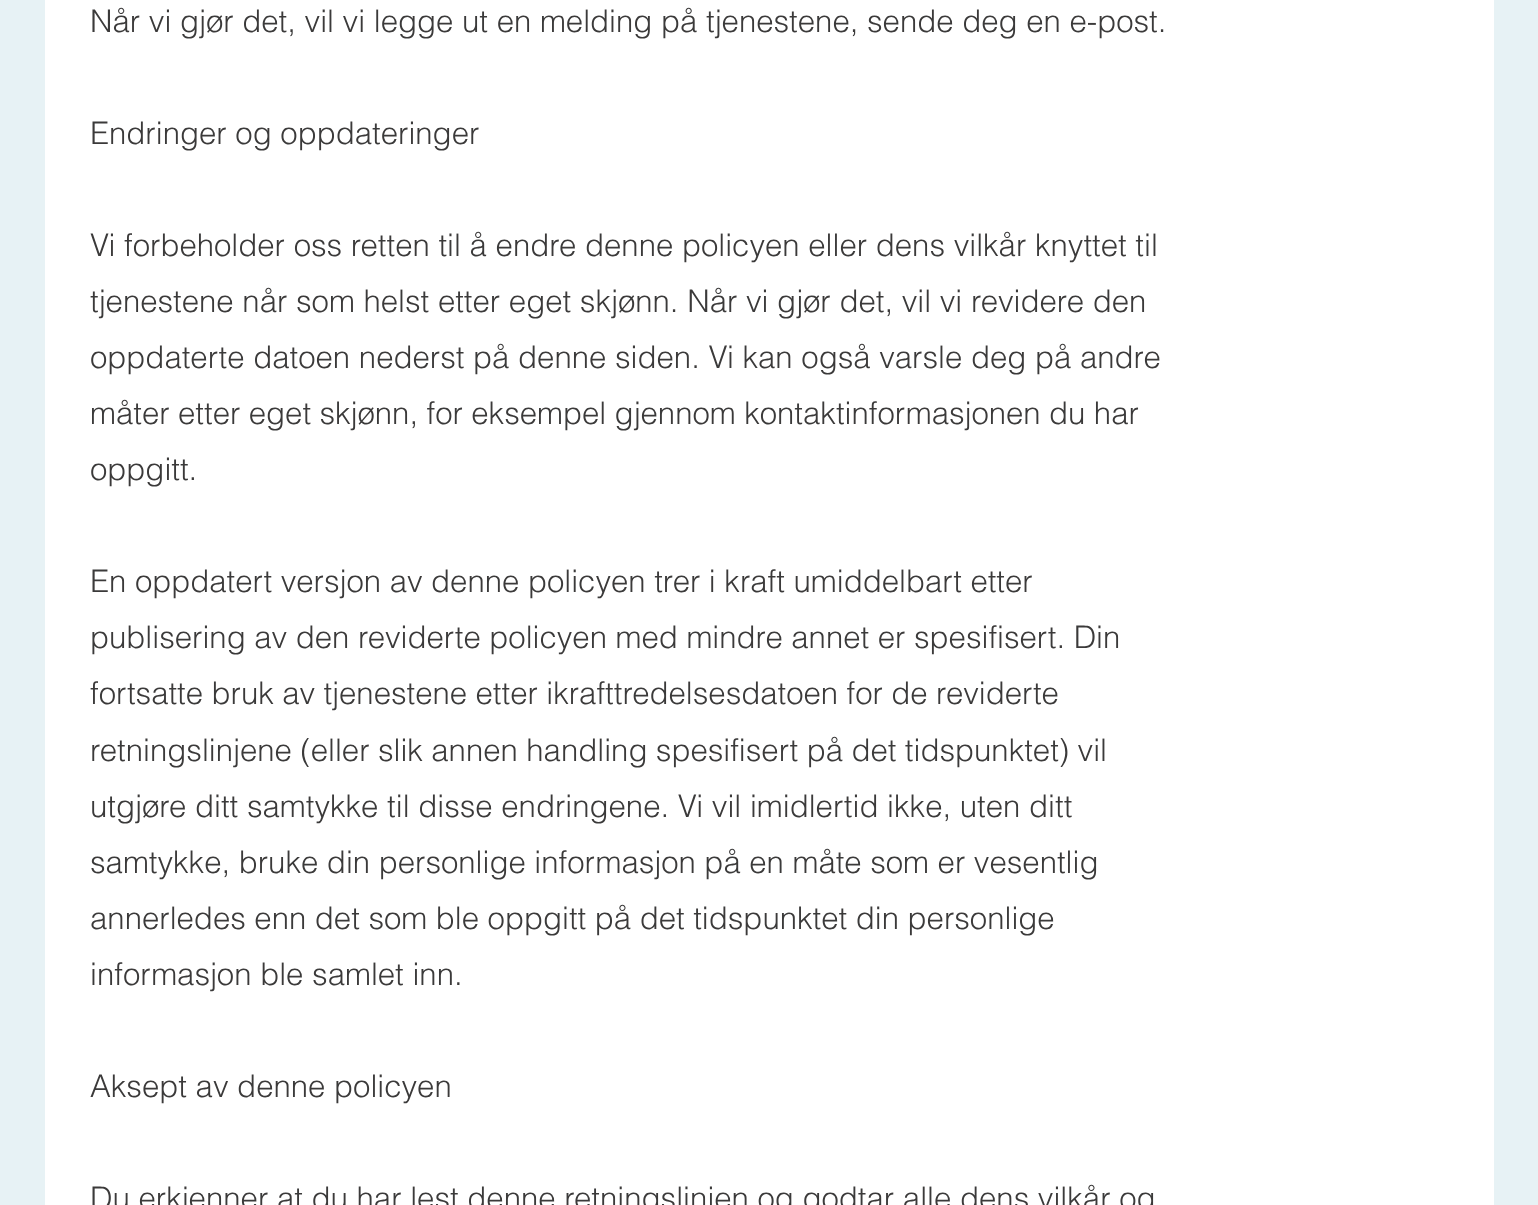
<svg xmlns="http://www.w3.org/2000/svg" width="1538" height="1205" viewBox="0 0 1538 1205">
  <rect width="100%" height="100%" fill="#e7f2f5"/>
  <path d="M45 0h1449v1205H45z" fill="#fff"/>
  <g font-family="helvetica" font-size="31.15" font-weight="300" fill="#3b3a3a">
    <text x="90" y="32">Når vi gjør det, vil vi legge ut en melding på tjenestene, sende deg en e-post.</text>
    <text x="90" y="144">Endringer og oppdateringer</text>
    <text x="90" y="256">Vi forbeholder oss retten til å endre denne policyen eller dens vilkår knyttet til</text>
    <text x="90" y="312">tjenestene når som helst etter eget skjønn. Når vi gjør det, vil vi revidere den</text>
    <text x="90" y="368">oppdaterte datoen nederst på denne siden. Vi kan også varsle deg på andre</text>
    <text x="90" y="424" word-spacing="-0.25">måter etter eget skjønn, for eksempel gjennom kontaktinformasjonen du har</text>
    <text x="90" y="480">oppgitt.</text>
    <text x="90" y="592" word-spacing="-0.1">En oppdatert versjon av denne policyen trer i kraft umiddelbart etter</text>
    <text x="90" y="648" word-spacing="-0.1">publisering av den reviderte policyen med mindre annet er spesifisert. Din</text>
    <text x="90" y="704" word-spacing="-0.25">fortsatte bruk av tjenestene etter ikrafttredelsesdatoen for de reviderte</text>
    <text x="90" y="761" word-spacing="-0.25">retningslinjene (eller slik annen handling spesifisert på det tidspunktet) vil</text>
    <text x="90" y="817">utgjøre ditt samtykke til disse endringene. Vi vil imidlertid ikke, uten ditt</text>
    <text x="90" y="873" word-spacing="-0.1">samtykke, bruke din personlige informasjon på en måte som er vesentlig</text>
    <text x="90" y="929" word-spacing="-0.1">annerledes enn det som ble oppgitt på det tidspunktet din personlige</text>
    <text x="90" y="985">informasjon ble samlet inn.</text>
    <text x="90" y="1097">Aksept av denne policyen</text>
    <text x="90" y="1209">Du erkjenner at du har lest denne retningslinjen og godtar alle dens vilkår og</text>
  </g>
</svg>
